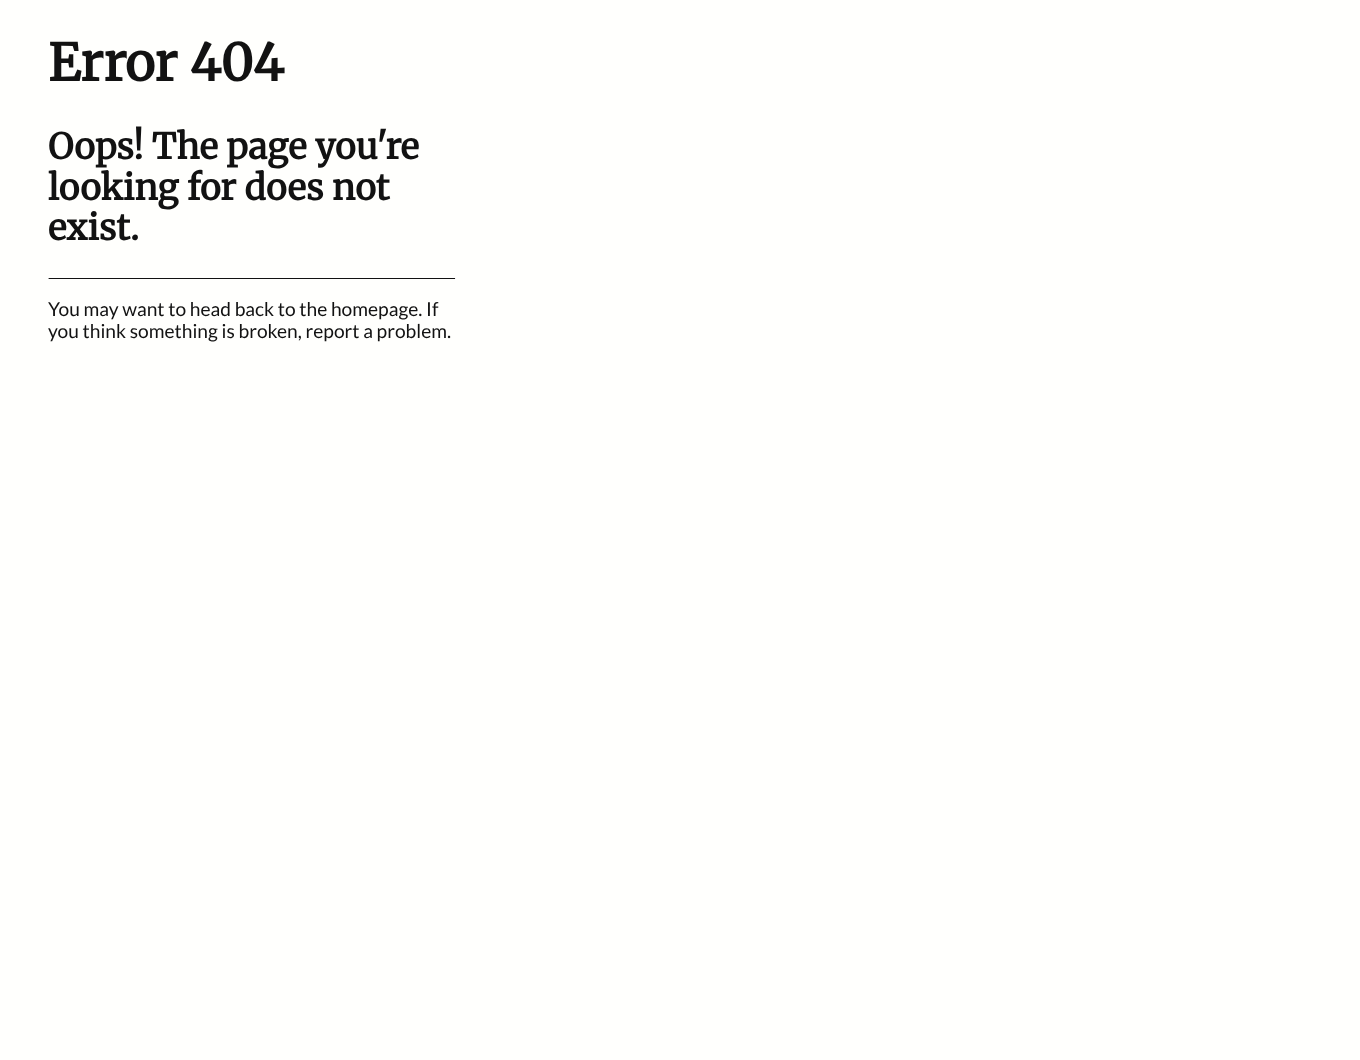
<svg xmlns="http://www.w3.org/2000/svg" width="1360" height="1060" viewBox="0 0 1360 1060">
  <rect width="100%" height="100%" fill="#fffffd"/>
  <path d="M48 278h408v1H48z" fill="#121212"/>
  <path d="M455 278h1v1H455z" fill="#eee"/>
  <path d="M48 278h1v1H48z" fill="#9f9f9f"/>
  <text x="48" y="81" font-family="Merriweather" font-size="51" font-weight="bold" fill="#121212">Error 404</text>
  <g font-family="Merriweather" font-size="35.25" font-weight="bold" fill="#121212">
    <text x="48" y="159">Oops! The page you're</text>
    <text x="48" y="200">looking for does not</text>
    <text x="48" y="240">exist.</text>
  </g>
  <g font-family="Lato" font-size="19.2" fill="#121212">
    <text x="48" y="316">You may want to head back to the homepage. If</text>
    <text x="48" y="338">you think something is broken, report a problem.</text>
  </g>
</svg>
